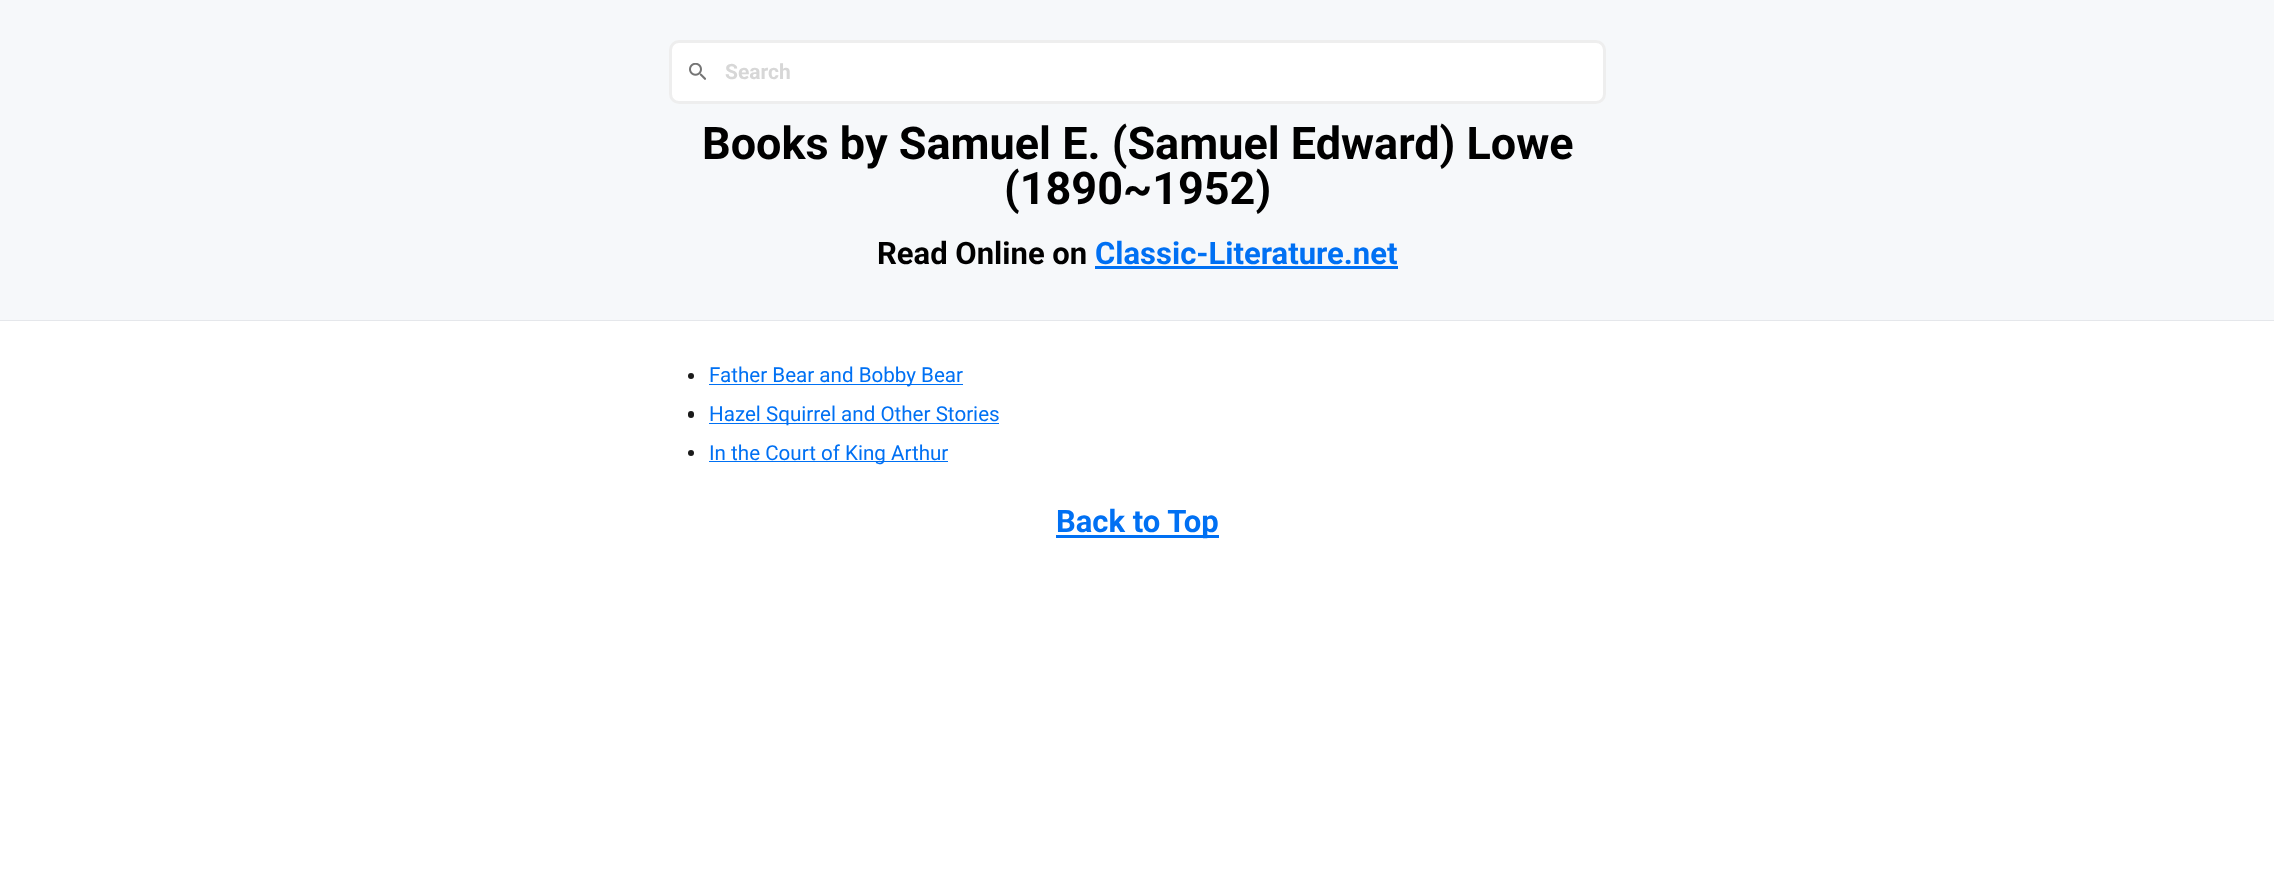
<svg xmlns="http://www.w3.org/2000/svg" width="2274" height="891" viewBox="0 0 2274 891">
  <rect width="100%" height="100%" fill="#fff"/>
  <path d="M0 0h2274v320H0z" fill="#f6f8fa"/>
  <path d="M0 320h2274v1H0z" fill="#e5e7eb"/>
  <rect x="670.5" y="41.5" width="934" height="61" rx="8.5" fill="#fff" stroke="#eee" stroke-width="3"/>
  <image x="689" y="63" width="17" height="17" href="img/1.png"/>
  <path d="M1095 266h303v3H1095z" fill="#0070f3"/>
  <circle cx="691" cy="376" r="3" fill="#1a1a1a"/>
  <path d="M709 384h254v1H709z" fill="#0070f3"/>
  <rect x="688" y="411" width="6" height="7" rx="3" fill="#1a1a1a"/>
  <path d="M709 423h290v1H709z" fill="#0070f3"/>
  <circle cx="691" cy="453" r="3" fill="#1a1a1a"/>
  <path d="M709 461h239v1H709z" fill="#0070f3"/>
  <path d="M1056 535h163v3H1056z" fill="#0070f3"/>
  <text x="725" y="79" font-family="Roboto" font-size="21" font-weight="bold" fill="#d7d7d7">Search</text>
  <g font-family="Roboto" font-size="45" font-weight="bold" fill="#000">
    <text x="702" y="159">Books by Samuel E. (Samuel Edward) Lowe</text>
    <text x="1004" y="204">(1890~1952)</text>
  </g>
  <text x="877" y="264" font-family="Roboto" font-size="31" font-weight="bold" fill="#000">Read Online on</text>
  <text x="1095" y="264" font-family="Roboto" font-size="31" font-weight="bold" fill="#0070f3">Classic-Literature.net</text>
  <g font-family="Roboto" font-size="20.6" fill="#0070f3">
    <text x="709" y="382">Father Bear and Bobby Bear</text>
    <text x="709" y="421">Hazel Squirrel and Other Stories</text>
    <text x="709" y="460">In the Court of King Arthur</text>
  </g>
  <text x="1056" y="532" font-family="Roboto" font-size="31" font-weight="bold" fill="#0070f3">Back to Top</text>
</svg>
